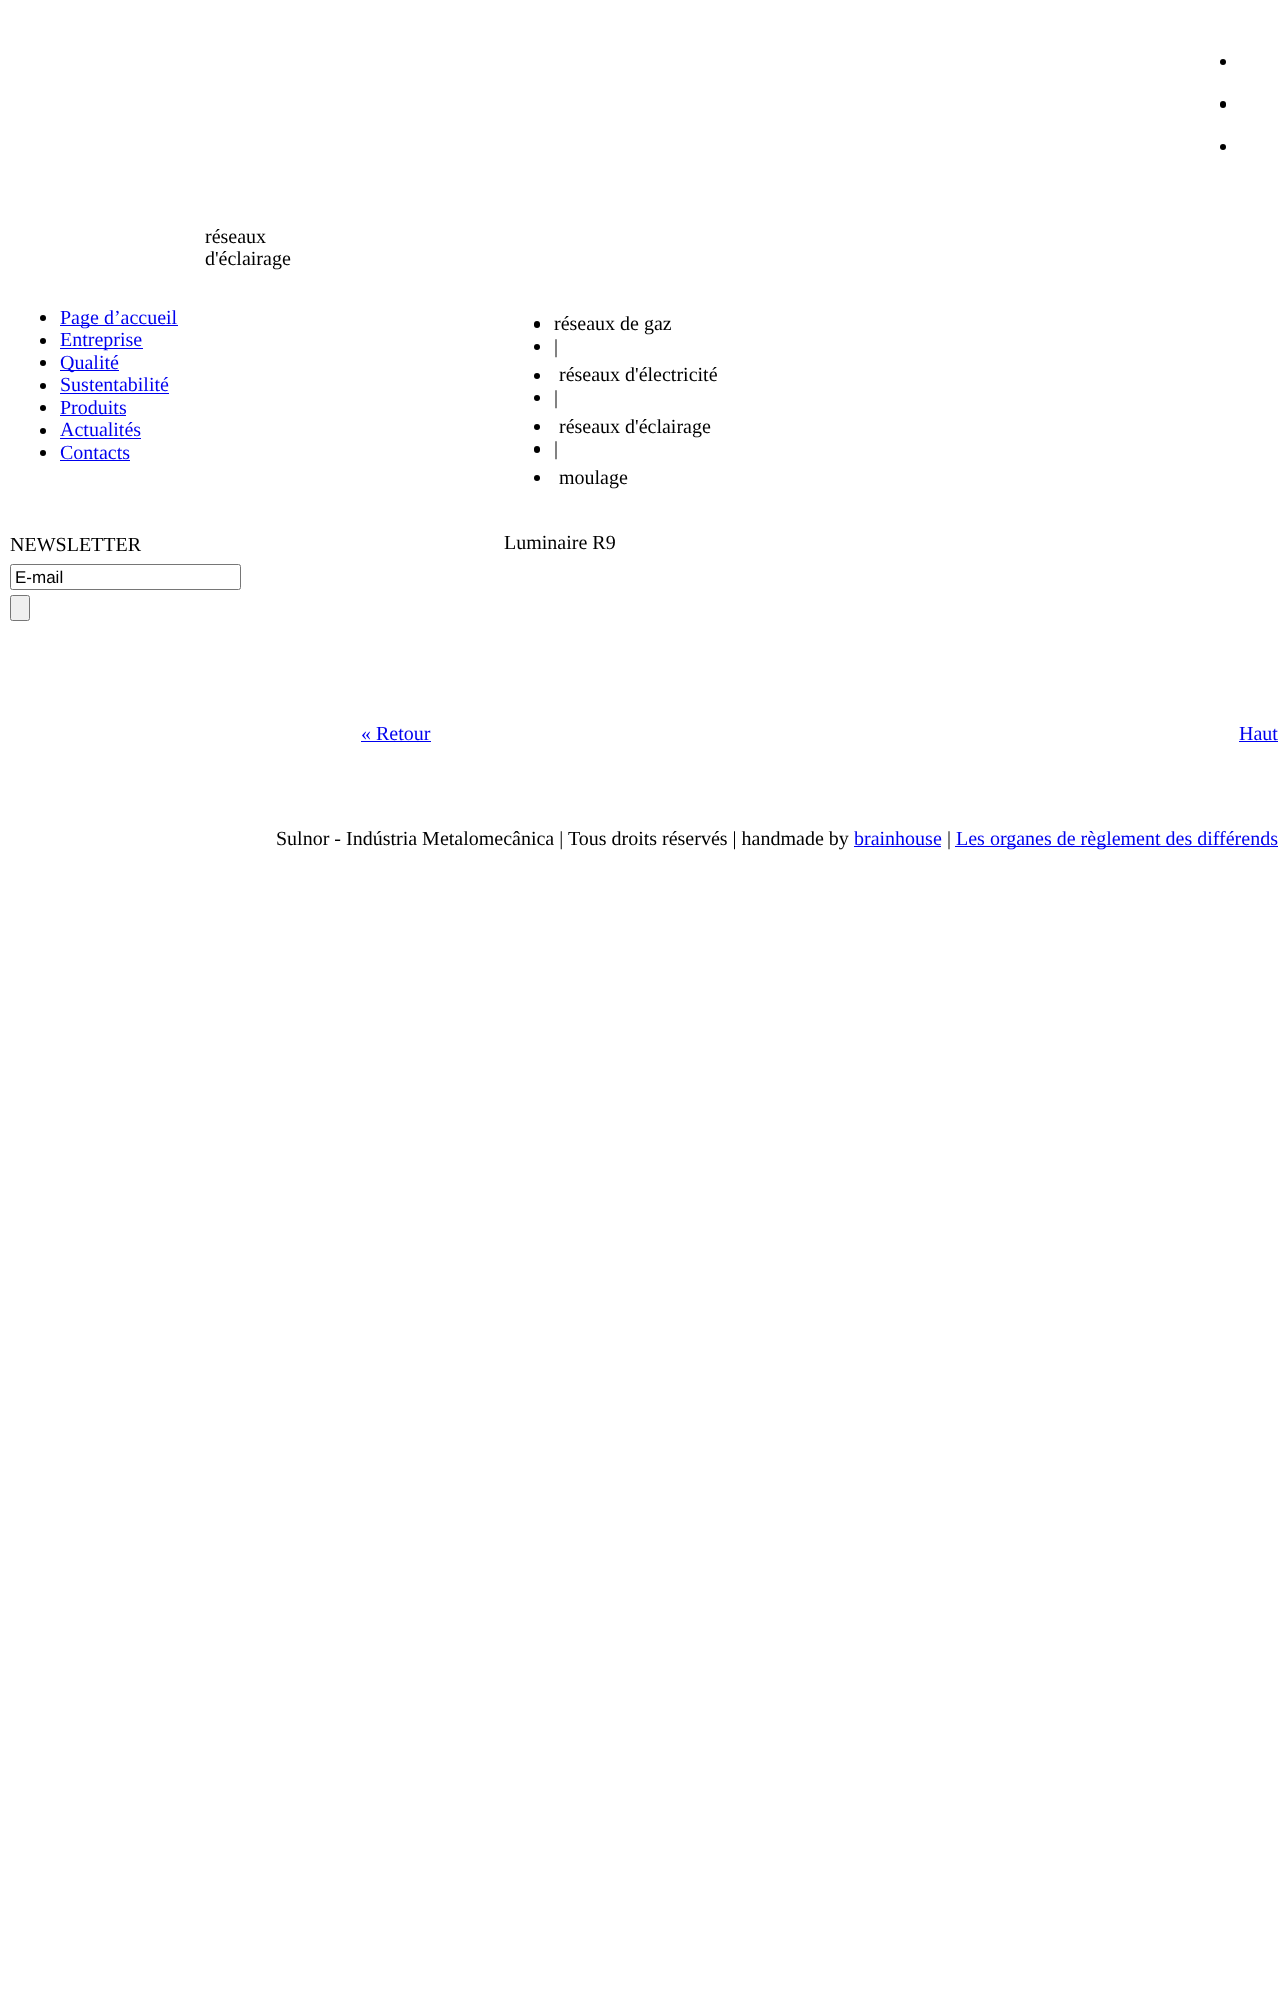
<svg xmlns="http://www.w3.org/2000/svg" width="1287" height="2008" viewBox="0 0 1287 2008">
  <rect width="100%" height="100%" fill="#fff"/>
  <circle cx="1223" cy="62" r="3" fill="#000"/>
  <rect x="1220" y="101" width="6" height="7" rx="3" fill="#000"/>
  <circle cx="1223" cy="147" r="3" fill="#000"/>
  <circle cx="43" cy="318" r="3" fill="#000"/>
  <path d="M60 325h118v1H60z" fill="#00e"/>
  <circle cx="43" cy="341" r="3" fill="#000"/>
  <path d="M60 348h83v1H60z" fill="#00e"/>
  <circle cx="43" cy="363" r="3" fill="#000"/>
  <path d="M60 370h59v1H60z" fill="#00e"/>
  <circle cx="43" cy="386" r="3" fill="#000"/>
  <path d="M60 393h109v1H60z" fill="#00e"/>
  <circle cx="43" cy="408" r="3" fill="#000"/>
  <path d="M60 415h66v1H60z" fill="#00e"/>
  <circle cx="43" cy="431" r="3" fill="#000"/>
  <path d="M60 438h81v1H60z" fill="#00e"/>
  <circle cx="43" cy="453" r="3" fill="#000"/>
  <path d="M60 460h70v1H60z" fill="#00e"/>
  <rect x="10.5" y="564.5" width="230" height="25" rx="2" fill="none" stroke="#767676"/>
  <rect x="10.5" y="595.5" width="19" height="25" rx="2" fill="#efefef" stroke="#767676"/>
  <rect x="534" y="321" width="6" height="7" rx="3" fill="#000"/>
  <circle cx="537" cy="347" r="3" fill="#000"/>
  <circle cx="537" cy="376" r="3" fill="#000"/>
  <circle cx="537" cy="398" r="3" fill="#000"/>
  <circle cx="537" cy="427" r="3" fill="#000"/>
  <rect x="534" y="446" width="6" height="7" rx="3" fill="#000"/>
  <circle cx="537" cy="478" r="3" fill="#000"/>
  <path d="M361 741h70v1H361z" fill="#00e"/>
  <path d="M1239 741h39v1H1239z" fill="#00e"/>
  <path d="M854 846h87v1H854z" fill="#00e"/>
  <path d="M955 846h323v1H955z" fill="#00e"/>
  <g font-family="Liberation Serif" font-size="20" fill="#000">
    <text x="205" y="243">réseaux</text>
    <text x="205" y="265">d'éclairage</text>
  </g>
  <g font-family="Liberation Serif" font-size="20" fill="#00e">
    <text x="60" y="324">Page d’accueil</text>
    <text x="60" y="346">Entreprise</text>
    <text x="60" y="369">Qualité</text>
    <text x="60" y="391">Sustentabilité</text>
    <text x="60" y="414">Produits</text>
    <text x="60" y="436">Actualités</text>
    <text x="60" y="459">Contacts</text>
  </g>
  <text x="10" y="551" font-family="Liberation Serif" font-size="20" fill="#000">NEWSLETTER</text>
  <text x="15" y="583" font-family="Liberation Sans" font-size="17" fill="#000">E-mail</text>
  <g font-family="Liberation Serif" font-size="20" fill="#000">
    <text x="554" y="330">réseaux de gaz</text>
    <text x="554" y="353">|</text>
    <text x="559" y="381">réseaux d'électricité</text>
    <text x="554" y="404">|</text>
    <text x="559" y="433">réseaux d'éclairage</text>
    <text x="554" y="455">|</text>
    <text x="559" y="484">moulage</text>
    <text x="504" y="549">Luminaire R9</text>
  </g>
  <g font-family="Liberation Serif" font-size="20" fill="#00e">
    <text x="361" y="740">« Retour</text>
    <text x="1239" y="740">Haut</text>
  </g>
  <text x="276" y="845" font-family="Liberation Serif" font-size="20" fill="#000">Sulnor - Indústria Metalomecânica | Tous droits réservés | handmade by</text>
  <text x="854" y="845" font-family="Liberation Serif" font-size="20" fill="#00e">brainhouse</text>
  <text x="947" y="845" font-family="Liberation Serif" font-size="20" fill="#000">|</text>
  <text x="956" y="845" font-family="Liberation Serif" font-size="20" fill="#00e">Les organes de règlement des différends</text>
</svg>
